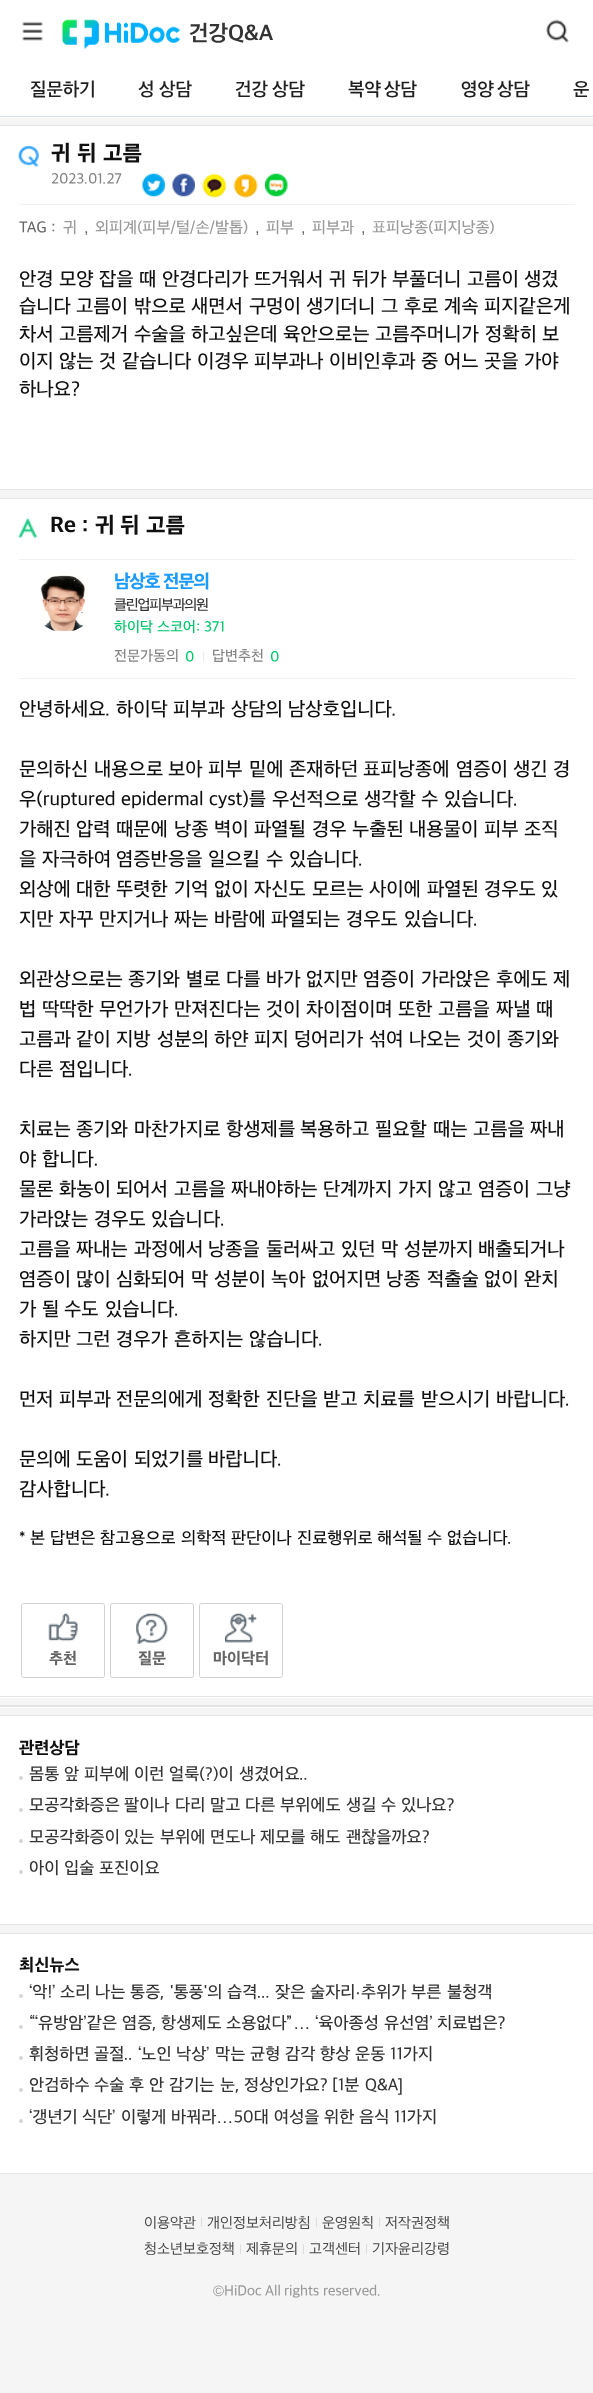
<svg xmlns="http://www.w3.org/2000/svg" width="593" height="2393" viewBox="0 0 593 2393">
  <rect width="100%" height="100%" fill="#f5f5f5"/>
  <path d="M0 0h593v118H0z" fill="#fff"/>
  <image x="22" y="21" width="21" height="20" href="img/1.png"/>
  <image x="62" y="19" width="118" height="30" href="img/2.png"/>
  <image x="546" y="19" width="23" height="24" href="img/3.png"/>
  <path d="M0 116h593v1H0z" fill="#dae1e6"/>
  <path d="M0 126h593v363H0z" fill="#fff"/>
  <path d="M0 125h593v1H0z" fill="#e4e4e4"/>
  <path d="M0 489h593v1H0z" fill="#e4e4e4"/>
  <image x="18" y="146" width="21" height="21" href="img/4.png"/>
  <image x="142" y="173" width="23" height="24" href="img/5.png"/>
  <image x="172" y="173" width="23" height="24" href="img/6.png"/>
  <image x="202" y="173" width="25" height="25" href="img/7.png"/>
  <image x="233" y="173" width="25" height="25" href="img/8.png"/>
  <image x="265" y="173" width="23" height="24" href="img/9.png"/>
  <path d="M19 204h556v1H19z" fill="#f2f2f2"/>
  <path d="M0 499h593v1199H0z" fill="#fff"/>
  <path d="M0 498h593v1H0z" fill="#e4e4e4"/>
  <path d="M0 1696h593v1H0z" fill="#e4e4e4"/>
  <image x="18" y="518" width="20" height="20" href="img/10.png"/>
  <path d="M19 559h556v1H19z" fill="#f2f2f2"/>
  <image x="40" y="571" width="50" height="61" href="img/11.png"/>
  <path d="M19 678h556v1H19z" fill="#f2f2f2"/>
  <rect x="21.5" y="1603.5" width="83" height="74" rx="2" fill="none" stroke="#d2d2d2"/>
  <image x="48" y="1613" width="30" height="29" href="img/12.png"/>
  <rect x="110.5" y="1603.5" width="83" height="74" rx="2" fill="none" stroke="#d2d2d2"/>
  <image x="136" y="1613" width="32" height="31" href="img/13.png"/>
  <rect x="199.5" y="1603.5" width="83" height="74" rx="2" fill="none" stroke="#d2d2d2"/>
  <image x="225" y="1613" width="32" height="30" href="img/14.png"/>
  <path d="M0 1707h593v1H0z" fill="#fff"/>
  <path d="M0 1705h593v2H0z" fill="#e4e4e4"/>
  <path d="M0 1716h593v208H0z" fill="#fff"/>
  <path d="M0 1715h593v1H0z" fill="#e4e4e4"/>
  <path d="M0 1924h593v1H0z" fill="#e4e4e4"/>
  <circle cx="21" cy="1778" r="2" fill="#d6d6d6"/>
  <circle cx="21" cy="1810" r="2" fill="#d6d6d6"/>
  <circle cx="21" cy="1841" r="2" fill="#d6d6d6"/>
  <circle cx="21" cy="1872" r="2" fill="#d6d6d6"/>
  <path d="M0 1934h593v239H0z" fill="#fff"/>
  <path d="M0 1933h593v1H0z" fill="#e4e4e4"/>
  <path d="M0 2173h593v1H0z" fill="#e4e4e4"/>
  <circle cx="21" cy="1996" r="2" fill="#d6d6d6"/>
  <circle cx="21" cy="2027" r="2" fill="#d6d6d6"/>
  <circle cx="21" cy="2058" r="2" fill="#d6d6d6"/>
  <circle cx="21" cy="2090" r="2" fill="#d6d6d6"/>
  <circle cx="21" cy="2121" r="2" fill="#d6d6d6"/>
  <text x="189" y="41" font-family="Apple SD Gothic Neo" font-size="22.5" font-weight="bold" fill="#333">건강Q&amp;A</text>
  <g font-family="Apple SD Gothic Neo" font-size="19" font-weight="600" fill="#1f1f1f">
    <text x="30" y="96">질문하기</text>
    <text x="138" y="96">성</text>
    <text x="159" y="96">상담</text>
    <text x="235" y="96">건강</text>
    <text x="272" y="96">상담</text>
    <text x="348" y="96">복약</text>
    <text x="384" y="96">상담</text>
    <text x="461" y="96">영양</text>
    <text x="497" y="96">상담</text>
    <text x="573" y="96">운</text>
  </g>
  <g font-family="Apple SD Gothic Neo" font-size="22.5" font-weight="800" fill="#101010">
    <text x="51" y="161">귀</text>
    <text x="77" y="161">뒤</text>
    <text x="103" y="161">고름</text>
  </g>
  <text x="51" y="184" font-family="Apple SD Gothic Neo" font-size="15" font-weight="500" fill="#848484">2023.01.27</text>
  <g font-family="Apple SD Gothic Neo" font-size="16.25" font-weight="500" fill="#666">
    <text x="19" y="233">TAG</text>
    <text x="51" y="233">:</text>
  </g>
  <g font-family="Apple SD Gothic Neo" font-size="16.25" font-weight="500" fill="#999">
    <text x="63" y="233">귀</text>
    <text x="95" y="233">외피계(피부/털/손/발톱)</text>
    <text x="266" y="233">피부</text>
    <text x="312" y="233">피부과</text>
    <text x="372" y="233">표피낭종(피지낭종)</text>
  </g>
  <g font-family="Liberation Sans" font-size="16.25" fill="#666">
    <text x="84" y="233">,</text>
    <text x="255" y="233">,</text>
    <text x="301" y="233">,</text>
    <text x="361" y="233">,</text>
  </g>
  <g font-family="Apple SD Gothic Neo" font-size="20" font-weight="500" fill="#101010">
    <text x="19" y="286">안경</text>
    <text x="59" y="286">모양</text>
    <text x="99" y="286">잡을</text>
    <text x="139" y="286">때</text>
    <text x="162" y="286">안경다리가</text>
    <text x="254" y="286">뜨거워서</text>
    <text x="329" y="286">귀</text>
    <text x="352" y="286">뒤가</text>
    <text x="392" y="286">부풀더니</text>
    <text x="467" y="286">고름이</text>
    <text x="524" y="286">생겼</text>
    <text x="19" y="313">습니다</text>
    <text x="76" y="313">고름이</text>
    <text x="134" y="313">밖으로</text>
    <text x="191" y="313">새면서</text>
    <text x="249" y="313">구멍이</text>
    <text x="306" y="313">생기더니</text>
    <text x="381" y="313">그</text>
    <text x="404" y="313">후로</text>
    <text x="444" y="313">계속</text>
    <text x="484" y="313">피지같은게</text>
    <text x="19" y="341">차서</text>
    <text x="59" y="341">고름제거</text>
    <text x="134" y="341">수술을</text>
    <text x="191" y="341">하고싶은데</text>
    <text x="283" y="341">육안으로는</text>
    <text x="375" y="341">고름주머니가</text>
    <text x="485" y="341">정확히</text>
    <text x="542" y="341">보</text>
    <text x="19" y="368">이지</text>
    <text x="59" y="368">않는</text>
    <text x="99" y="368">것</text>
    <text x="122" y="368">같습니다</text>
    <text x="197" y="368">이경우</text>
    <text x="254" y="368">피부과나</text>
    <text x="329" y="368">이비인후과</text>
    <text x="421" y="368">중</text>
    <text x="444" y="368">어느</text>
    <text x="484" y="368">곳을</text>
    <text x="524" y="368">가야</text>
    <text x="19" y="396">하나요?</text>
  </g>
  <g font-family="Apple SD Gothic Neo" font-size="22.5" font-weight="800" fill="#101010">
    <text x="50" y="533">Re</text>
    <text x="82" y="533">:</text>
    <text x="95" y="533">귀</text>
    <text x="120" y="533">뒤</text>
    <text x="146" y="533">고름</text>
  </g>
  <g font-family="Apple SD Gothic Neo" font-size="19" font-weight="800" letter-spacing="-1.25" fill="#1b9bfe">
    <text x="114" y="588">남상호</text>
    <text x="163" y="588">전문의</text>
  </g>
  <text x="114" y="610" font-family="Apple SD Gothic Neo" font-size="15" font-weight="500" letter-spacing="-1.25" fill="#333">클린업피부과의원</text>
  <g font-family="Apple SD Gothic Neo" font-size="15" font-weight="500" fill="#00c56b">
    <text x="114" y="632">하이닥</text>
    <text x="157" y="632">스코어:</text>
    <text x="204" y="632">371</text>
  </g>
  <text x="114" y="661" font-family="Apple SD Gothic Neo" font-size="15" font-weight="500" fill="#848484">전문가동의</text>
  <text x="185" y="662" font-family="Apple SD Gothic Neo" font-size="15" font-weight="500" fill="#00c56b">0</text>
  <text x="202" y="661" font-family="Apple SD Gothic Neo" font-size="12" font-weight="500" fill="#e8e8e8">|</text>
  <text x="212" y="661" font-family="Apple SD Gothic Neo" font-size="15" font-weight="500" fill="#848484">답변추천</text>
  <text x="270" y="662" font-family="Apple SD Gothic Neo" font-size="15" font-weight="500" fill="#00c56b">0</text>
  <g font-family="Apple SD Gothic Neo" font-size="20" font-weight="500" fill="#101010">
    <text x="19" y="716">안녕하세요.</text>
    <text x="116" y="716">하이닥</text>
    <text x="173" y="716">피부과</text>
    <text x="231" y="716">상담의</text>
    <text x="288" y="716">남상호입니다.</text>
    <text x="19" y="776">문의하신</text>
    <text x="94" y="776">내용으로</text>
    <text x="168" y="776">보아</text>
    <text x="208" y="776">피부</text>
    <text x="249" y="776">밑에</text>
    <text x="289" y="776">존재하던</text>
    <text x="363" y="776">표피낭종에</text>
    <text x="456" y="776">염증이</text>
    <text x="513" y="776">생긴</text>
    <text x="553" y="776">경</text>
    <text x="19" y="806">우(ruptured</text>
    <text x="121" y="806">epidermal</text>
    <text x="209" y="806">cyst)를</text>
    <text x="272" y="806">우선적으로</text>
    <text x="364" y="806">생각할</text>
    <text x="421" y="806">수</text>
    <text x="444" y="806">있습니다.</text>
    <text x="19" y="836">가해진</text>
    <text x="76" y="836">압력</text>
    <text x="116" y="836">때문에</text>
    <text x="174" y="836">낭종</text>
    <text x="214" y="836">벽이</text>
    <text x="254" y="836">파열될</text>
    <text x="312" y="836">경우</text>
    <text x="352" y="836">누출된</text>
    <text x="409" y="836">내용물이</text>
    <text x="484" y="836">피부</text>
    <text x="524" y="836">조직</text>
    <text x="19" y="866">을</text>
    <text x="42" y="866">자극하여</text>
    <text x="116" y="866">염증반응을</text>
    <text x="208" y="866">일으킬</text>
    <text x="266" y="866">수</text>
    <text x="289" y="866">있습니다.</text>
    <text x="19" y="896">외상에</text>
    <text x="76" y="896">대한</text>
    <text x="116" y="896">뚜렷한</text>
    <text x="174" y="896">기억</text>
    <text x="214" y="896">없이</text>
    <text x="254" y="896">자신도</text>
    <text x="312" y="896">모르는</text>
    <text x="369" y="896">사이에</text>
    <text x="427" y="896">파열된</text>
    <text x="484" y="896">경우도</text>
    <text x="541" y="896">있</text>
    <text x="19" y="926">지만</text>
    <text x="59" y="926">자꾸</text>
    <text x="99" y="926">만지거나</text>
    <text x="174" y="926">짜는</text>
    <text x="214" y="926">바람에</text>
    <text x="271" y="926">파열되는</text>
    <text x="346" y="926">경우도</text>
    <text x="404" y="926">있습니다.</text>
    <text x="19" y="986">외관상으로는</text>
    <text x="128" y="986">종기와</text>
    <text x="186" y="986">별로</text>
    <text x="226" y="986">다를</text>
    <text x="266" y="986">바가</text>
    <text x="306" y="986">없지만</text>
    <text x="363" y="986">염증이</text>
    <text x="421" y="986">가라앉은</text>
    <text x="496" y="986">후에도</text>
    <text x="553" y="986">제</text>
    <text x="19" y="1016">법</text>
    <text x="42" y="1016">딱딱한</text>
    <text x="99" y="1016">무언가가</text>
    <text x="174" y="1016">만져진다는</text>
    <text x="266" y="1016">것이</text>
    <text x="306" y="1016">차이점이며</text>
    <text x="398" y="1016">또한</text>
    <text x="438" y="1016">고름을</text>
    <text x="496" y="1016">짜낼</text>
    <text x="536" y="1016">때</text>
    <text x="19" y="1046">고름과</text>
    <text x="76" y="1046">같이</text>
    <text x="116" y="1046">지방</text>
    <text x="157" y="1046">성분의</text>
    <text x="214" y="1046">하얀</text>
    <text x="254" y="1046">피지</text>
    <text x="294" y="1046">덩어리가</text>
    <text x="369" y="1046">섞여</text>
    <text x="409" y="1046">나오는</text>
    <text x="467" y="1046">것이</text>
    <text x="507" y="1046">종기와</text>
    <text x="19" y="1076">다른</text>
    <text x="59" y="1076">점입니다.</text>
    <text x="19" y="1136">치료는</text>
    <text x="76" y="1136">종기와</text>
    <text x="134" y="1136">마찬가지로</text>
    <text x="226" y="1136">항생제를</text>
    <text x="300" y="1136">복용하고</text>
    <text x="375" y="1136">필요할</text>
    <text x="433" y="1136">때는</text>
    <text x="473" y="1136">고름을</text>
    <text x="530" y="1136">짜내</text>
    <text x="19" y="1166">야</text>
    <text x="42" y="1166">합니다.</text>
    <text x="19" y="1196">물론</text>
    <text x="59" y="1196">화농이</text>
    <text x="116" y="1196">되어서</text>
    <text x="174" y="1196">고름을</text>
    <text x="231" y="1196">짜내야하는</text>
    <text x="323" y="1196">단계까지</text>
    <text x="398" y="1196">가지</text>
    <text x="438" y="1196">않고</text>
    <text x="478" y="1196">염증이</text>
    <text x="536" y="1196">그냥</text>
    <text x="19" y="1226">가라앉는</text>
    <text x="94" y="1226">경우도</text>
    <text x="151" y="1226">있습니다.</text>
    <text x="19" y="1256">고름을</text>
    <text x="76" y="1256">짜내는</text>
    <text x="134" y="1256">과정에서</text>
    <text x="208" y="1256">낭종을</text>
    <text x="266" y="1256">둘러싸고</text>
    <text x="341" y="1256">있던</text>
    <text x="381" y="1256">막</text>
    <text x="404" y="1256">성분까지</text>
    <text x="478" y="1256">배출되거나</text>
    <text x="19" y="1286">염증이</text>
    <text x="76" y="1286">많이</text>
    <text x="116" y="1286">심화되어</text>
    <text x="191" y="1286">막</text>
    <text x="214" y="1286">성분이</text>
    <text x="271" y="1286">녹아</text>
    <text x="312" y="1286">없어지면</text>
    <text x="386" y="1286">낭종</text>
    <text x="427" y="1286">적출술</text>
    <text x="484" y="1286">없이</text>
    <text x="524" y="1286">완치</text>
    <text x="19" y="1316">가</text>
    <text x="42" y="1316">될</text>
    <text x="64" y="1316">수도</text>
    <text x="105" y="1316">있습니다.</text>
    <text x="19" y="1346">하지만</text>
    <text x="76" y="1346">그런</text>
    <text x="116" y="1346">경우가</text>
    <text x="174" y="1346">흔하지는</text>
    <text x="249" y="1346">않습니다.</text>
    <text x="19" y="1406">먼저</text>
    <text x="59" y="1406">피부과</text>
    <text x="116" y="1406">전문의에게</text>
    <text x="208" y="1406">정확한</text>
    <text x="266" y="1406">진단을</text>
    <text x="323" y="1406">받고</text>
    <text x="363" y="1406">치료를</text>
    <text x="421" y="1406">받으시기</text>
    <text x="496" y="1406">바랍니다.</text>
    <text x="19" y="1466">문의에</text>
    <text x="76" y="1466">도움이</text>
    <text x="134" y="1466">되었기를</text>
    <text x="208" y="1466">바랍니다.</text>
    <text x="19" y="1496">감사합니다.</text>
  </g>
  <g font-family="Apple SD Gothic Neo" font-size="17.5" font-weight="500" fill="#101010">
    <text x="19" y="1544">*</text>
    <text x="30" y="1544">본</text>
    <text x="50" y="1544">답변은</text>
    <text x="100" y="1544">참고용으로</text>
    <text x="181" y="1544">의학적</text>
    <text x="231" y="1544">판단이나</text>
    <text x="297" y="1544">진료행위로</text>
    <text x="377" y="1544">해석될</text>
    <text x="427" y="1544">수</text>
    <text x="447" y="1544">없습니다.</text>
  </g>
  <g font-family="Apple SD Gothic Neo" font-size="16.25" font-weight="800" fill="#666">
    <text x="49" y="1664">추천</text>
    <text x="138" y="1664">질문</text>
    <text x="213" y="1664">마이닥터</text>
  </g>
  <text x="19" y="1754" font-family="Apple SD Gothic Neo" font-size="17.5" font-weight="800" fill="#101010">관련상담</text>
  <g font-family="Apple SD Gothic Neo" font-size="17.5" font-weight="500" fill="#333">
    <text x="29" y="1780">몸통</text>
    <text x="64" y="1780">앞</text>
    <text x="84" y="1780">피부에</text>
    <text x="134" y="1780">이런</text>
    <text x="169" y="1780">얼룩(?)이</text>
    <text x="239" y="1780">생겼어요..</text>
    <text x="29" y="1811">모공각화증은</text>
    <text x="124" y="1811">팔이나</text>
    <text x="175" y="1811">다리</text>
    <text x="210" y="1811">말고</text>
    <text x="245" y="1811">다른</text>
    <text x="280" y="1811">부위에도</text>
    <text x="346" y="1811">생길</text>
    <text x="381" y="1811">수</text>
    <text x="401" y="1811">있나요?</text>
    <text x="29" y="1843">모공각화증이</text>
    <text x="124" y="1843">있는</text>
    <text x="160" y="1843">부위에</text>
    <text x="210" y="1843">면도나</text>
    <text x="260" y="1843">제모를</text>
    <text x="310" y="1843">해도</text>
    <text x="346" y="1843">괜찮을까요?</text>
    <text x="29" y="1874">아이</text>
    <text x="64" y="1874">입술</text>
    <text x="99" y="1874">포진이요</text>
  </g>
  <text x="19" y="1971" font-family="Apple SD Gothic Neo" font-size="17.5" font-weight="800" fill="#101010">최신뉴스</text>
  <g font-family="Apple SD Gothic Neo" font-size="17.5" font-weight="500" fill="#333">
    <text x="29" y="1998">‘악!’</text>
    <text x="60" y="1998">소리</text>
    <text x="95" y="1998">나는</text>
    <text x="130" y="1998">통증,</text>
    <text x="170" y="1998">'통풍'의</text>
    <text x="227" y="1998">습격...</text>
    <text x="275" y="1998">잦은</text>
    <text x="310" y="1998">술자리</text>
  </g>
  <text x="355" y="1998" font-family="Liberation Sans" font-size="17.5" fill="#333">·</text>
  <g font-family="Apple SD Gothic Neo" font-size="17.5" font-weight="500" fill="#333">
    <text x="361" y="1998">추위가</text>
    <text x="411" y="1998">부른</text>
    <text x="447" y="1998">불청객</text>
    <text x="29" y="2029">“‘유방암’같은</text>
    <text x="122" y="2029">염증,</text>
    <text x="161" y="2029">항생제도</text>
    <text x="226" y="2029">소용없다”</text>
  </g>
  <text x="293" y="2029" font-family="Liberation Sans" font-size="17.5" fill="#333">…</text>
  <g font-family="Apple SD Gothic Neo" font-size="17.5" font-weight="500" fill="#333">
    <text x="315" y="2029">‘육아종성</text>
    <text x="384" y="2029">유선염’</text>
    <text x="437" y="2029">치료법은?</text>
    <text x="29" y="2060">휘청하면</text>
    <text x="94" y="2060">골절..</text>
    <text x="138" y="2060">‘노인</text>
    <text x="176" y="2060">낙상’</text>
    <text x="215" y="2060">막는</text>
    <text x="250" y="2060">균형</text>
    <text x="285" y="2060">감각</text>
    <text x="320" y="2060">향상</text>
    <text x="355" y="2060">운동</text>
    <text x="390" y="2060">11가지</text>
    <text x="29" y="2091">안검하수</text>
    <text x="94" y="2091">수술</text>
    <text x="129" y="2091">후</text>
    <text x="149" y="2091">안</text>
    <text x="169" y="2091">감기는</text>
    <text x="220" y="2091">눈,</text>
    <text x="244" y="2091">정상인가요?</text>
    <text x="332" y="2091">[1분</text>
    <text x="365" y="2091">Q&amp;A</text>
  </g>
  <text x="398" y="2091" font-family="Liberation Sans" font-size="17.5" fill="#333">]</text>
  <g font-family="Apple SD Gothic Neo" font-size="17.5" font-weight="500" fill="#333">
    <text x="29" y="2123">‘갱년기</text>
    <text x="82" y="2123">식단’</text>
    <text x="121" y="2123">이렇게</text>
    <text x="171" y="2123">바꿔라</text>
  </g>
  <text x="216" y="2123" font-family="Liberation Sans" font-size="17.5" fill="#333">…</text>
  <g font-family="Apple SD Gothic Neo" font-size="17.5" font-weight="500" fill="#333">
    <text x="234" y="2123">50대</text>
    <text x="274" y="2123">여성을</text>
    <text x="324" y="2123">위한</text>
    <text x="359" y="2123">음식</text>
    <text x="394" y="2123">11가지</text>
  </g>
  <text x="144" y="2228" font-family="Apple SD Gothic Neo" font-size="15" fill="#4a4a4a">이용약관</text>
  <text x="200" y="2226" font-family="Apple SD Gothic Neo" font-size="11" font-weight="500" fill="#d6d6d6">|</text>
  <text x="207" y="2228" font-family="Apple SD Gothic Neo" font-size="15" fill="#4a4a4a">개인정보처리방침</text>
  <text x="315" y="2226" font-family="Apple SD Gothic Neo" font-size="11" font-weight="500" fill="#d6d6d6">|</text>
  <text x="322" y="2228" font-family="Apple SD Gothic Neo" font-size="15" fill="#4a4a4a">운영원칙</text>
  <text x="378" y="2226" font-family="Apple SD Gothic Neo" font-size="11" font-weight="500" fill="#d6d6d6">|</text>
  <g font-family="Apple SD Gothic Neo" font-size="15" fill="#4a4a4a">
    <text x="385" y="2228">저작권정책</text>
    <text x="144" y="2254">청소년보호정책</text>
  </g>
  <text x="239" y="2253" font-family="Apple SD Gothic Neo" font-size="11" font-weight="500" fill="#d6d6d6">|</text>
  <text x="246" y="2254" font-family="Apple SD Gothic Neo" font-size="15" fill="#4a4a4a">제휴문의</text>
  <text x="302" y="2253" font-family="Apple SD Gothic Neo" font-size="11" font-weight="500" fill="#d6d6d6">|</text>
  <text x="309" y="2254" font-family="Apple SD Gothic Neo" font-size="15" fill="#4a4a4a">고객센터</text>
  <text x="365" y="2253" font-family="Apple SD Gothic Neo" font-size="11" font-weight="500" fill="#d6d6d6">|</text>
  <text x="372" y="2254" font-family="Apple SD Gothic Neo" font-size="15" fill="#4a4a4a">기자윤리강령</text>
  <text x="213" y="2296" font-family="Liberation Sans" font-size="15" fill="#999">©</text>
  <g font-family="Apple SD Gothic Neo" font-size="15" font-weight="500" fill="#999">
    <text x="224" y="2296">HiDoc</text>
    <text x="265" y="2296">All</text>
    <text x="284" y="2296">rights</text>
    <text x="323" y="2296">reserved.</text>
  </g>
</svg>
